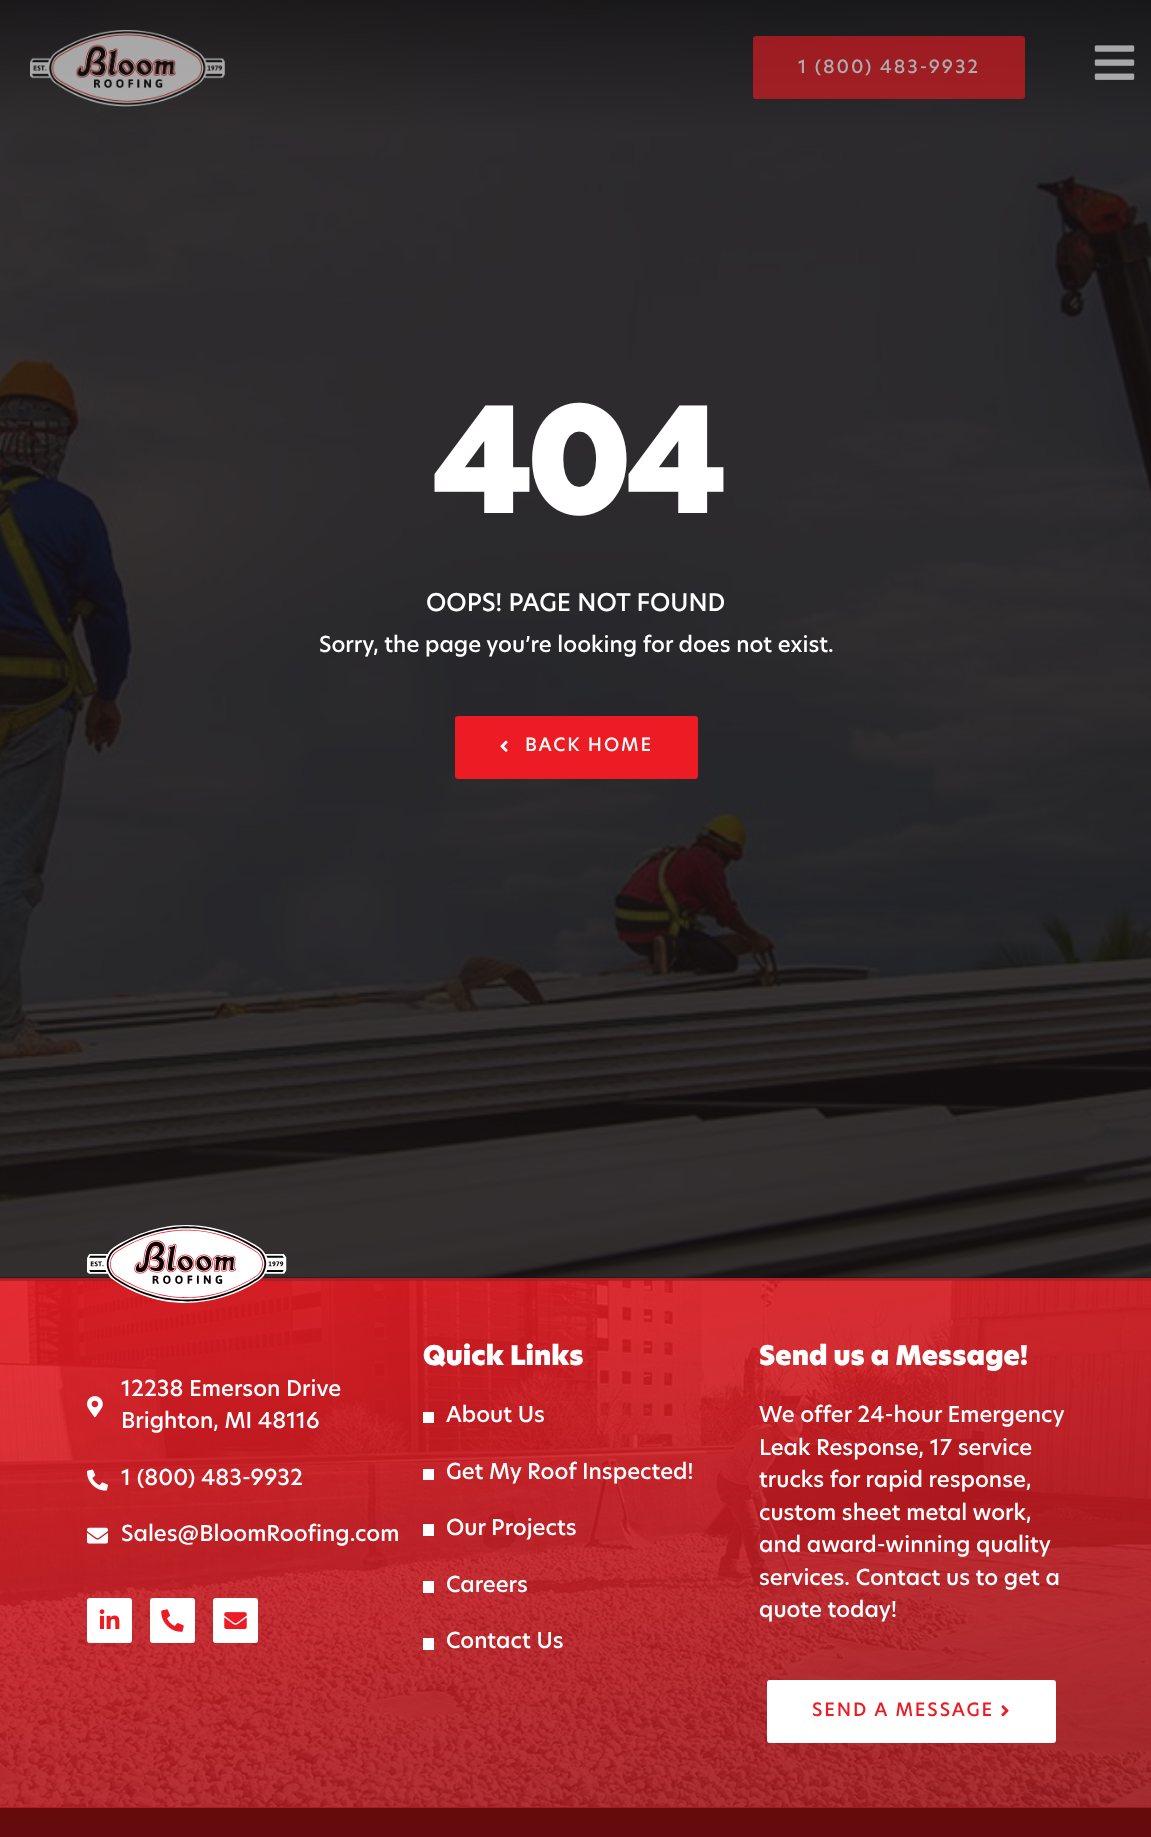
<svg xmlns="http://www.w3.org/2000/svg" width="1151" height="1837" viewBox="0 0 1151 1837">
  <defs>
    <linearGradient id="g1" gradientUnits="userSpaceOnUse" x1="514" y1="1190" x2="638" y2="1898"><stop offset="0" stop-color="#ed1c24"/><stop offset="1" stop-color="#9c181d"/></linearGradient>
  </defs>
  <rect width="100%" height="100%" fill="#151011"/>
  <image x="0" y="0" width="1151" height="1278" href="img/3.png"/>
  <image x="30" y="30" width="195" height="77" href="img/1.png"/>
  <rect x="753" y="36" width="272" height="63" rx="3" fill="#ed1c249c"/>
  <image x="1094" y="45" width="41" height="35" href="img/2.png"/>
  <rect x="455" y="716" width="243" height="63" rx="3" fill="#ed1c24"/>
  <image x="500" y="740" width="8" height="12" href="img/4.png"/>
  <path d="M0 1281h1151v527H0z" fill="url(#g1)"/>
  <path d="M0 1278h1151v3H0z" fill="#ae1d22"/>
  <image x="0" y="1280" width="1151" height="527" href="img/5.png"/>
  <image x="87" y="1225" width="200" height="78" href="img/6.png"/>
  <image x="87" y="1396" width="16" height="22" href="img/7.png"/>
  <image x="87" y="1469" width="21" height="22" href="img/8.png"/>
  <image x="87" y="1527" width="21" height="17" href="img/9.png"/>
  <rect x="87" y="1598" width="45" height="45" rx="3" fill="#fff"/>
  <image x="99" y="1609" width="21" height="20" href="img/10.png"/>
  <rect x="150" y="1598" width="45" height="45" rx="3" fill="#fff"/>
  <image x="161" y="1609" width="23" height="23" href="img/11.png"/>
  <rect x="213" y="1598" width="45" height="45" rx="3" fill="#fff"/>
  <image x="224" y="1612" width="23" height="17" href="img/12.png"/>
  <path d="M423 1412h11v11H423z" fill="#fff"/>
  <path d="M423 1469h11v11H423z" fill="#fff"/>
  <path d="M423 1524h11v12H423z" fill="#fff"/>
  <path d="M423 1581h11v12H423z" fill="#fff"/>
  <path d="M423 1638h11v12H423z" fill="#fff"/>
  <rect x="767" y="1680" width="289" height="63" rx="3" fill="#fff"/>
  <image x="1001" y="1705" width="8" height="12" href="img/13.png"/>
  <path d="M0 1808h1151v29H0z" fill="#650a0d"/>
  <text x="798" y="73" font-family="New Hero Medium" font-size="18" font-weight="500" letter-spacing="1.9" fill="#adacad">1 (800) 483-9932</text>
  <text x="431" y="513" font-family="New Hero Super" font-size="144" font-weight="900" letter-spacing="-7.5" fill="#fff">404</text>
  <text x="426" y="611" font-family="New Hero Medium" font-size="24" font-weight="500" fill="#fff">OOPS! PAGE NOT FOUND</text>
  <text x="319" y="652" font-family="New Hero Medium" font-size="21.6" font-weight="500" fill="#fff">Sorry, the page you’re looking for does not exist.</text>
  <text x="525" y="751" font-family="New Hero Medium" font-size="18" font-weight="500" letter-spacing="1.9" fill="#fff">BACK HOME</text>
  <g font-family="New Hero Medium" font-size="21.6" font-weight="500" fill="#fff">
    <text x="121" y="1396">12238 Emerson Drive</text>
    <text x="121" y="1428">Brighton, MI 48116</text>
    <text x="121" y="1485">1 (800) 483-9932</text>
    <text x="121" y="1541">Sales@BloomRoofing.com</text>
  </g>
  <text x="423" y="1365" font-family="New Hero Super" font-size="26.4" font-weight="900" fill="#fff">Quick Links</text>
  <g font-family="New Hero Medium" font-size="21.6" font-weight="500" fill="#fff">
    <text x="446" y="1422">About Us</text>
    <text x="446" y="1479">Get My Roof Inspected!</text>
    <text x="446" y="1535">Our Projects</text>
    <text x="446" y="1592">Careers</text>
    <text x="446" y="1648">Contact Us</text>
  </g>
  <text x="759" y="1365" font-family="New Hero Super" font-size="26.4" font-weight="900" fill="#fff">Send us a Message!</text>
  <g font-family="New Hero Medium" font-size="21.6" font-weight="500" fill="#fff">
    <text x="759" y="1422">We offer 24-hour Emergency</text>
    <text x="759" y="1455">Leak Response, 17 service</text>
    <text x="759" y="1487">trucks for rapid response,</text>
    <text x="759" y="1520">custom sheet metal work,</text>
    <text x="759" y="1552">and award-winning quality</text>
    <text x="759" y="1585">services. Contact us to get a</text>
    <text x="759" y="1617">quote today!</text>
  </g>
  <text x="812" y="1716" font-family="New Hero Medium" font-size="18" font-weight="500" letter-spacing="1.9" fill="#ed1c24">SEND A MESSAGE</text>
</svg>
